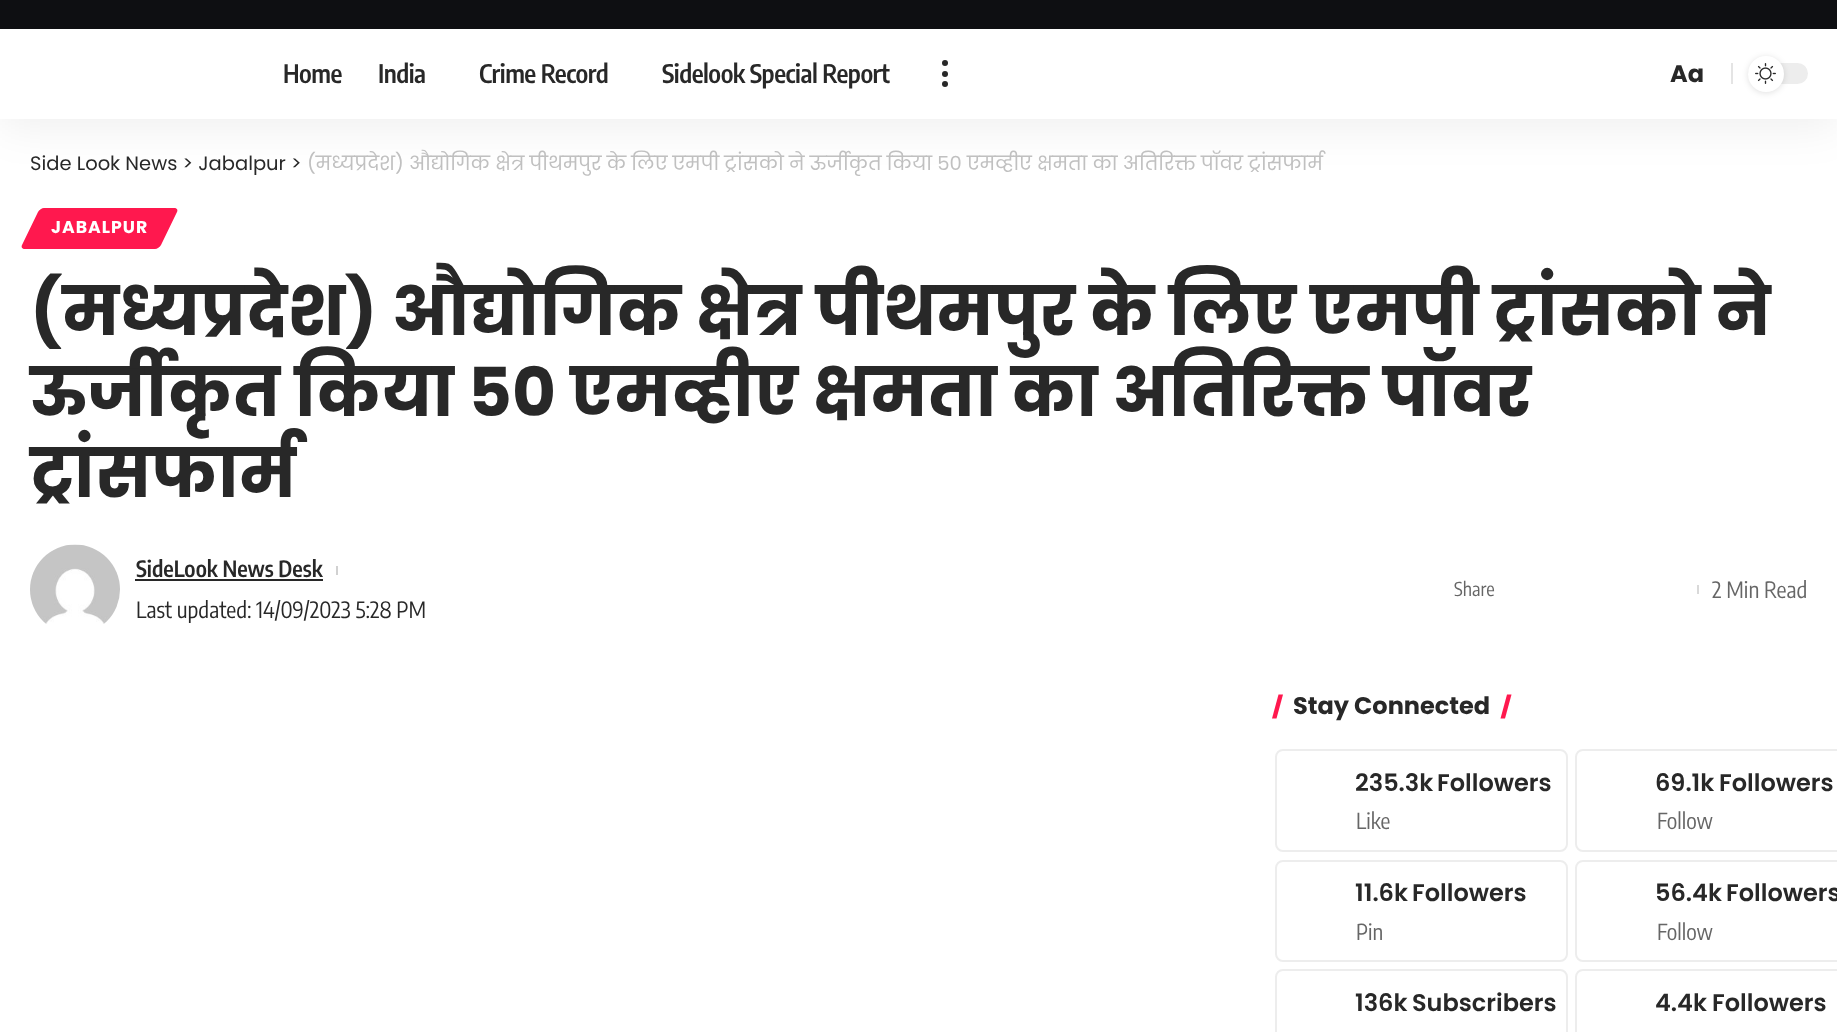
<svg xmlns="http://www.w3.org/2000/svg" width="1837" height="1032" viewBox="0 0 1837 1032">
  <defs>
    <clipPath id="clip1"><path d="M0 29h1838v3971H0z"/></clipPath>
  </defs>
  <rect width="100%" height="100%" fill="#fff"/>
  <path d="M0 0h1837v29H0z" fill="#0e0f12"/>
  <g clip-path="url(#clip1)">
    <path d="M0 35h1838v90H0z" fill="#00000012" filter="blur(22.5px)"/>
  </g>
  <path d="M0 29h1837v90H0z" fill="#fff"/>
  <circle cx="945" cy="63" r="3" fill="#282828"/>
  <circle cx="945" cy="74" r="3" fill="#282828"/>
  <circle cx="945" cy="84" r="3" fill="#282828"/>
  <path d="M1731 63h2v21H1731z" fill="#e4e4e4"/>
  <rect x="1748" y="63" width="60" height="21" rx="10.5" fill="#ededed"/>
  <rect x="1748" y="57" width="36" height="36" rx="18" fill="#0000001f" filter="blur(3px)"/>
  <circle cx="1766" cy="74" r="18" fill="#fff"/>
  <image x="1755" y="63" width="21" height="21" href="img/1.png"/>
  <path d="M44 208H174C177 208 178 210 177 212L161 245C160 247 157 249 155 249H25C22 249 21 247 22 245L38 212C39 210 42 208 44 208Z" fill="#ff184e"/>
  <image x="30" y="544" width="90" height="80" href="img/2.png"/>
  <path d="M135 579h188v2H135z" fill="#282828"/>
  <path d="M336 566h2v9H336z" fill="#d1d1d1"/>
  <path d="M1697 585h2v9H1697z" fill="#d9d9d9"/>
  <path d="M1507 694.5H1511.5L1505 718.5H1500.5Z" fill="#ff184e"/>
  <path d="M1278.5 694.5H1283L1276.5 718.5H1272Z" fill="#ff184e"/>
  <rect x="1276" y="750" width="291" height="101" rx="7" fill="none" stroke="#ededed" stroke-width="2"/>
  <rect x="1576" y="750" width="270" height="101" rx="7" fill="none" stroke="#ededed" stroke-width="2"/>
  <rect x="1276" y="861" width="291" height="100" rx="7" fill="none" stroke="#ededed" stroke-width="2"/>
  <rect x="1576" y="861" width="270" height="100" rx="7" fill="none" stroke="#ededed" stroke-width="2"/>
  <rect x="1276" y="970" width="291" height="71" rx="7" fill="none" stroke="#ededed" stroke-width="2"/>
  <rect x="1576" y="970" width="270" height="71" rx="7" fill="none" stroke="#ededed" stroke-width="2"/>
  <g font-family="Encode Sans Condensed" font-size="25.5" font-weight="600" letter-spacing="-0.5" fill="#282828">
    <text x="283" y="83">Home</text>
    <text x="378" y="83">India</text>
    <text x="479" y="83">Crime Record</text>
    <text x="662" y="83">Sidelook Special Report</text>
  </g>
  <text x="1670" y="82" font-family="Poppins" font-size="24" font-weight="bold" fill="#282828">Aa</text>
  <text x="30" y="170" font-family="Poppins" font-size="19.5" fill="#282828">Side Look News &gt; Jabalpur &gt;</text>
  <text x="307" y="170" font-family="Poppins" font-size="19.5" fill="#c0c0c0">(मध्यप्रदेश) औद्योगिक क्षेत्र पीथमपुर के लिए एमपी ट्रांसको ने ऊर्जीकृत किया 50 एमव्हीए क्षमता का अतिरिक्त पॉवर ट्रांसफार्म</text>
  <text x="51" y="233" font-family="Poppins" font-size="17.25" font-weight="bold" letter-spacing="1" fill="#fff">JABALPUR</text>
  <g font-family="Poppins" font-size="67.5" font-weight="bold" fill="#282828">
    <text x="30" y="335">(मध्यप्रदेश) औद्योगिक क्षेत्र पीथमपुर के लिए एमपी ट्रांसको ने</text>
    <text x="30" y="416">ऊर्जीकृत किया 50 एमव्हीए क्षमता का अतिरिक्त पॉवर</text>
    <text x="30" y="497">ट्रांसफार्म</text>
  </g>
  <text x="136" y="577" font-family="Encode Sans Condensed" font-size="22.4" font-weight="600" fill="#282828">SideLook News Desk</text>
  <text x="136" y="618" font-family="Encode Sans Condensed" font-size="22.4" fill="#282828">Last updated: 14/09/2023 5:28 PM</text>
  <text x="1454" y="596" font-family="Encode Sans Condensed" font-size="19" fill="#666">Share</text>
  <text x="1712" y="598" font-family="Encode Sans Condensed" font-size="22.4" fill="#666">2 Min Read</text>
  <text x="1293" y="714" font-family="Poppins" font-size="24" font-weight="bold" fill="#282828">Stay Connected</text>
  <g font-family="Poppins" font-size="24" font-weight="600" fill="#282828">
    <text x="1355" y="791">235.3k</text>
    <text x="1437" y="791">Followers</text>
  </g>
  <text x="1356" y="829" font-family="Encode Sans Condensed" font-size="22" fill="#666">Like</text>
  <g font-family="Poppins" font-size="24" font-weight="600" fill="#282828">
    <text x="1655" y="791">69.1k</text>
    <text x="1719" y="791">Followers</text>
  </g>
  <text x="1657" y="829" font-family="Encode Sans Condensed" font-size="22" fill="#666">Follow</text>
  <g font-family="Poppins" font-size="24" font-weight="600" fill="#282828">
    <text x="1355" y="901">11.6k</text>
    <text x="1412" y="901">Followers</text>
  </g>
  <text x="1356" y="940" font-family="Encode Sans Condensed" font-size="22" fill="#666">Pin</text>
  <g font-family="Poppins" font-size="24" font-weight="600" fill="#282828">
    <text x="1655" y="901">56.4k</text>
    <text x="1726" y="901">Followers</text>
  </g>
  <text x="1657" y="940" font-family="Encode Sans Condensed" font-size="22" fill="#666">Follow</text>
  <g font-family="Poppins" font-size="24" font-weight="600" fill="#282828">
    <text x="1355" y="1011">136k</text>
    <text x="1412" y="1011">Subscribers</text>
    <text x="1655" y="1011">4.4k</text>
    <text x="1712" y="1011">Followers</text>
  </g>
</svg>
